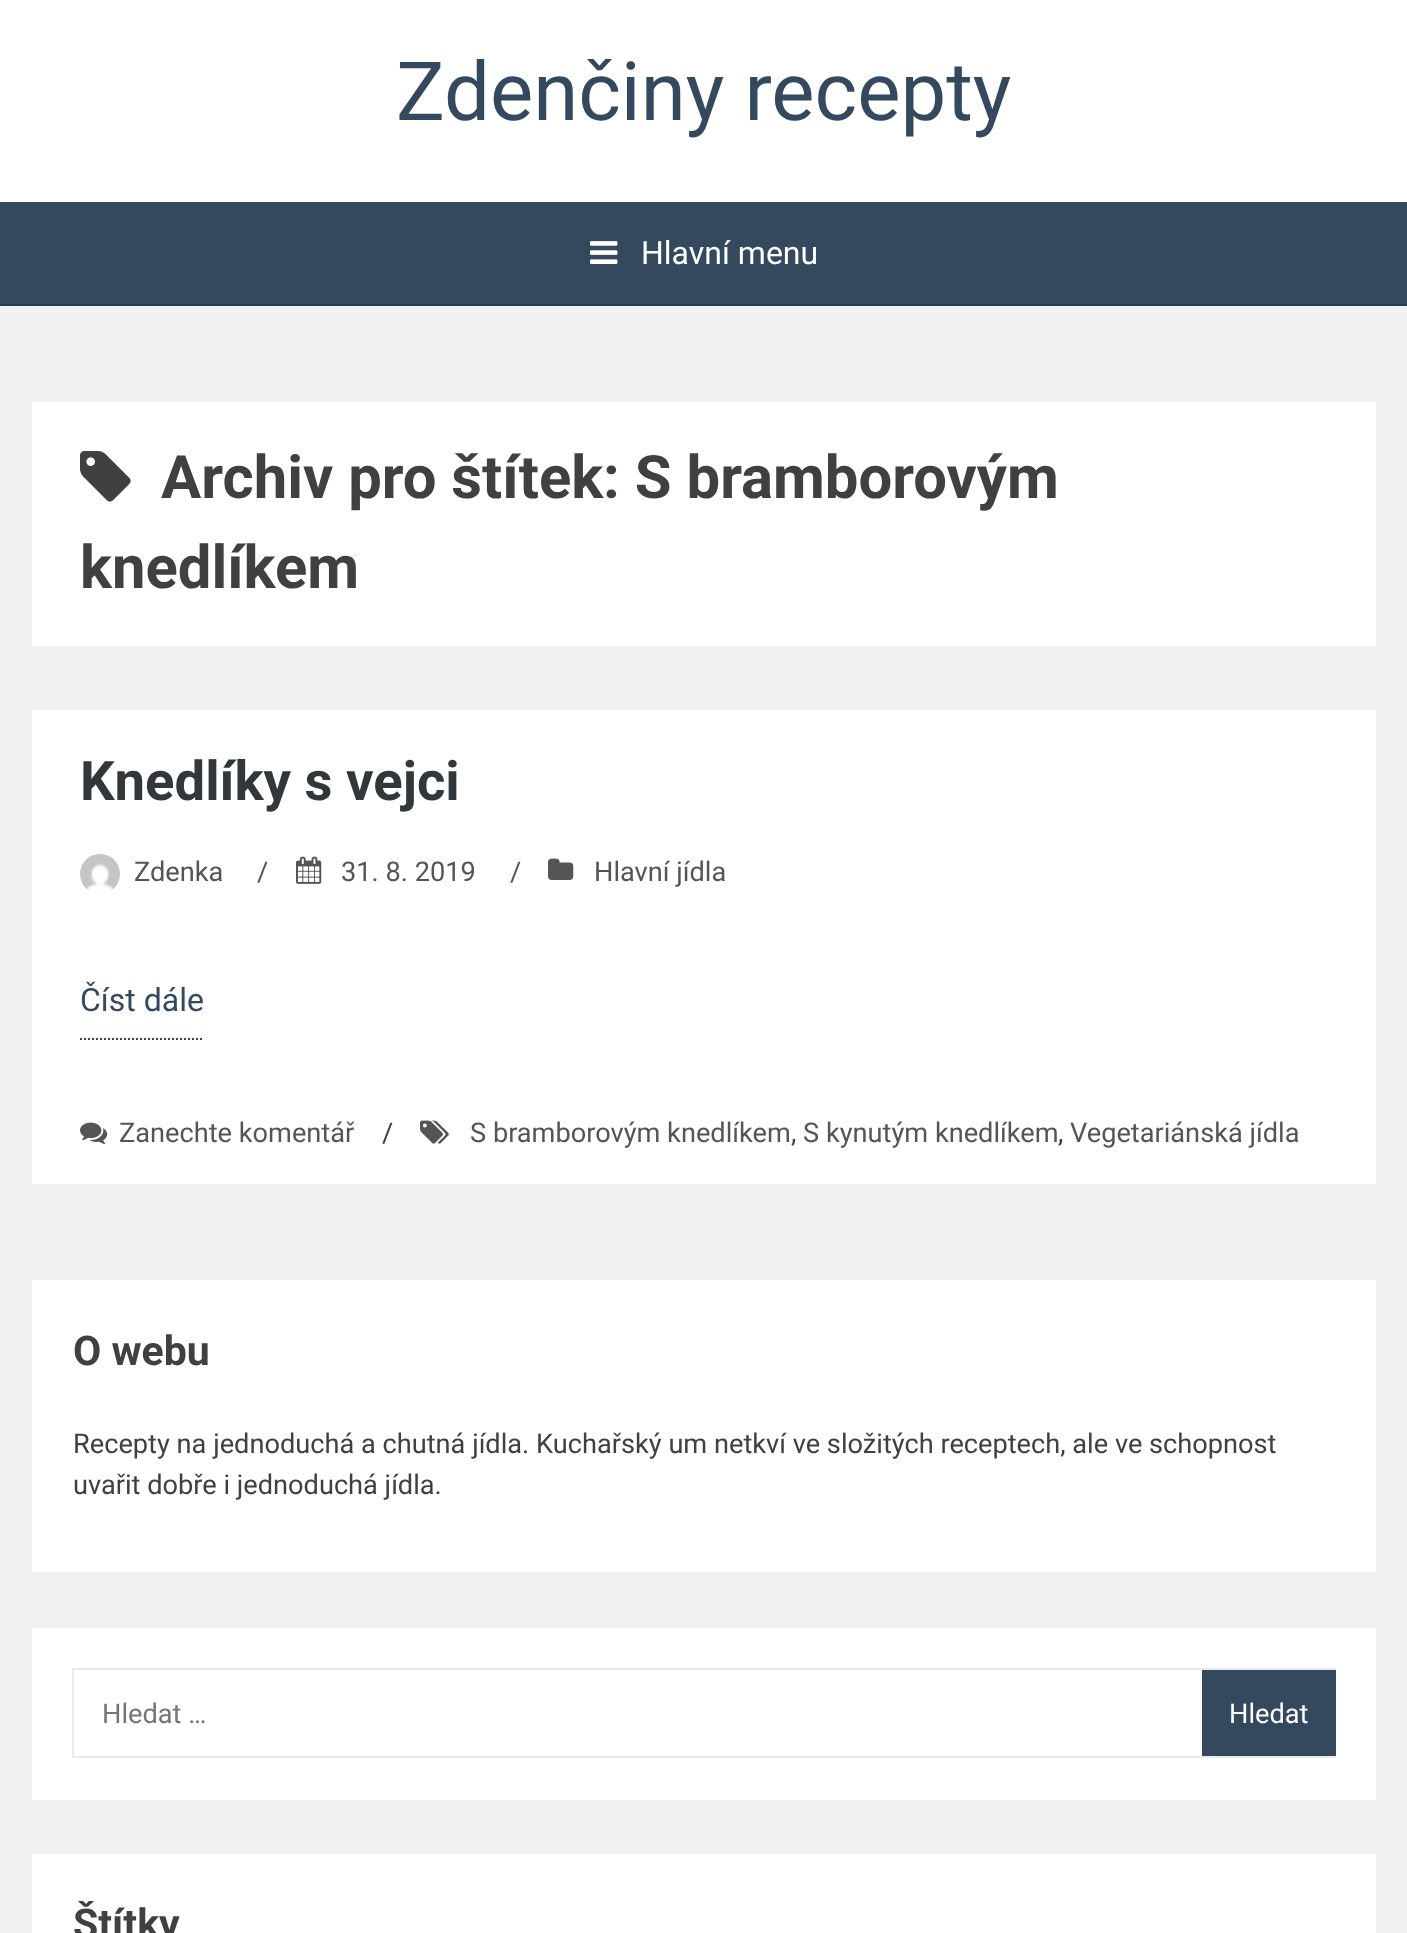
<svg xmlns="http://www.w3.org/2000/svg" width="1407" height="1933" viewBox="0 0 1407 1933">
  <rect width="100%" height="100%" fill="#f1f1f1"/>
  <path d="M0 0h1407v202H0z" fill="#fff"/>
  <path d="M0 202h1407v102H0z" fill="#34495e"/>
  <path d="M0 304h1407v2H0z" fill="#293b4c"/>
  <image x="590" y="241" width="28" height="23" href="img/1.png"/>
  <path d="M32 402h1344v244H32z" fill="#fff"/>
  <image x="80" y="451" width="51" height="51" href="img/2.png"/>
  <path d="M32 710h1344v474H32z" fill="#fff"/>
  <image x="80" y="854" width="40" height="36" href="img/3.png"/>
  <image x="296" y="856" width="26" height="28" href="img/4.png"/>
  <image x="548" y="858" width="26" height="22" href="img/5.png"/>
  <path d="M80 1039H204" fill="none" stroke="#34495e" stroke-width="2" stroke-dasharray="2 2"/>
  <image x="80" y="1122" width="28" height="22" href="img/6.png"/>
  <image x="420" y="1120" width="29" height="24" href="img/7.png"/>
  <path d="M32 1280h1344v292H32z" fill="#fff"/>
  <path d="M32 1628h1344v172H32z" fill="#fff"/>
  <path d="M73 1669h1262v88H73z" fill="none" stroke="#eaeaea" stroke-width="2"/>
  <path d="M1202 1670h134v86H1202z" fill="#34495e"/>
  <path d="M32 1854h1344v79H32z" fill="#fff"/>
  <text x="396" y="120" font-family="Roboto" font-size="81.5" fill="#34495e">Zdenčiny recepty</text>
  <text x="641" y="264" font-family="Roboto" font-size="32" fill="#fff">Hlavní menu</text>
  <g font-family="Roboto" font-size="59.8" font-weight="bold" fill="#404040">
    <text x="161" y="498">Archiv pro štítek: S bramborovým</text>
    <text x="80" y="588">knedlíkem</text>
  </g>
  <text x="80" y="800" font-family="Roboto" font-size="54.5" font-weight="bold" fill="#32373c">Knedlíky s vejci</text>
  <g font-family="Roboto" font-size="27.2" fill="#555">
    <text x="134" y="881">Zdenka</text>
    <text x="257" y="881">/</text>
    <text x="341" y="881">31. 8. 2019</text>
    <text x="510" y="881">/</text>
    <text x="594" y="881">Hlavní jídla</text>
  </g>
  <text x="80" y="1011" font-family="Roboto" font-size="32" fill="#34495e">Číst dále</text>
  <text x="119" y="1142" font-family="Roboto" font-size="27.2" fill="#555">Zanechte komentář</text>
  <text x="382" y="1142" font-family="Roboto" font-size="27.2" fill="#404040">/</text>
  <text x="470" y="1142" font-family="Roboto" font-size="27.2" fill="#555">S bramborovým knedlíkem</text>
  <text x="791" y="1142" font-family="Roboto" font-size="27.2" fill="#404040">,</text>
  <text x="803" y="1142" font-family="Roboto" font-size="27.2" fill="#555">S kynutým knedlíkem</text>
  <text x="1058" y="1142" font-family="Roboto" font-size="27.2" fill="#404040">,</text>
  <text x="1070" y="1142" font-family="Roboto" font-size="27.2" fill="#555">Vegetariánská jídla</text>
  <text x="73" y="1365" font-family="Roboto" font-size="41" font-weight="bold" fill="#404040">O webu</text>
  <g font-family="Roboto" font-size="27.2" fill="#404040">
    <text x="73" y="1453">Recepty na jednoduchá a chutná jídla. Kuchařský um netkví ve složitých receptech, ale ve schopnost</text>
    <text x="73" y="1494">uvařit dobře i jednoduchá jídla.</text>
  </g>
  <text x="102" y="1723" font-family="Roboto" font-size="27.2" fill="#757575">Hledat …</text>
  <text x="1229" y="1723" font-family="Roboto" font-size="27.2" fill="#fff">Hledat</text>
  <text x="73" y="1938" font-family="Roboto" font-size="41" font-weight="bold" fill="#404040">Štítky</text>
</svg>
